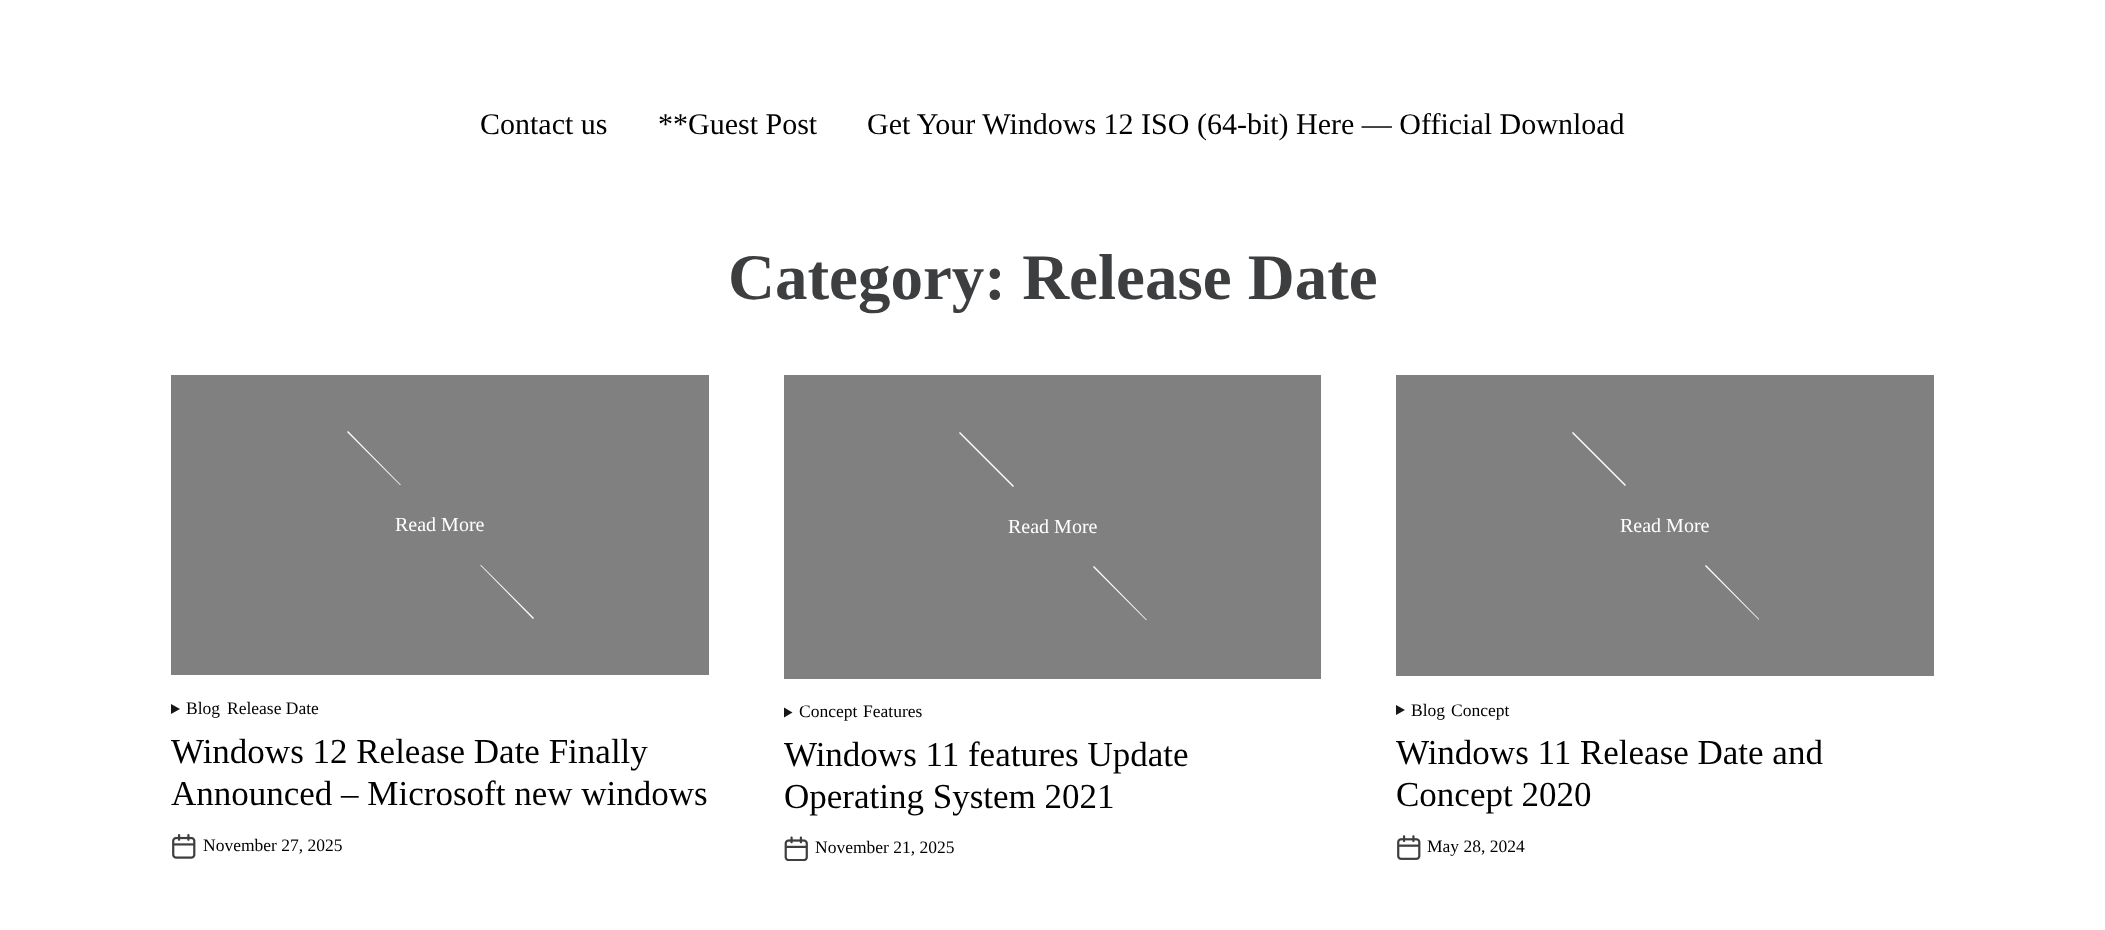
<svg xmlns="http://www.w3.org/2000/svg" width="2105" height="930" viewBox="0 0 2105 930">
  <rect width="100%" height="100%" fill="#fff"/>
  <path d="M171 375h538v300H171z" fill="#808080"/>
  <path d="M347 432L348 431L401 485H400Z" fill="#fff"/>
  <path d="M480 565H481L534 618L533 619Z" fill="#fff"/>
  <path d="M171 714V704L180 709Z" fill="#171617"/>
  <image x="172" y="834" width="24" height="25" href="img/1.png"/>
  <path d="M784 375h537v304H784z" fill="#808080"/>
  <path d="M959 433L960 432L1014 486L1013 487Z" fill="#fff"/>
  <path d="M1093 567L1094 566L1147 620H1146Z" fill="#fff"/>
  <path d="M784 717.5V707.5L792.5 712.5Z" fill="#171617"/>
  <image x="784" y="836" width="24" height="25" href="img/2.png"/>
  <path d="M1396 375h538v301H1396z" fill="#808080"/>
  <path d="M1572 433L1573 432L1626 485L1625 486Z" fill="#fff"/>
  <path d="M1705 566L1706 565L1759 619V620Z" fill="#fff"/>
  <path d="M1396 715V705L1405 710Z" fill="#171617"/>
  <image x="1397" y="835" width="24" height="25" href="img/3.png"/>
  <g font-family="Liberation Serif" font-size="30" fill="#000">
    <text x="480" y="134">Contact us</text>
    <text x="658" y="134">**Guest Post</text>
    <text x="867" y="134">Get Your Windows 12 ISO (64-bit) Here — Official Download</text>
  </g>
  <text x="728" y="299" font-family="Liberation Serif" font-size="65" font-weight="bold" fill="#3d3e40">Category: Release Date</text>
  <text x="395" y="531" font-family="Liberation Serif" font-size="20" fill="#fff">Read More</text>
  <g font-family="Liberation Serif" font-size="17.5" fill="#000">
    <text x="186" y="714">Blog</text>
    <text x="227" y="714">Release Date</text>
  </g>
  <g font-family="Liberation Serif" font-size="35" fill="#000">
    <text x="171" y="763">Windows 12 Release Date Finally</text>
    <text x="171" y="805">Announced – Microsoft new windows</text>
  </g>
  <text x="203" y="851" font-family="Liberation Serif" font-size="17.5" fill="#000">November 27, 2025</text>
  <text x="1008" y="533" font-family="Liberation Serif" font-size="20" fill="#fff">Read More</text>
  <g font-family="Liberation Serif" font-size="17.5" fill="#000">
    <text x="799" y="717">Concept</text>
    <text x="863" y="717">Features</text>
  </g>
  <g font-family="Liberation Serif" font-size="35" fill="#000">
    <text x="784" y="766">Windows 11 features Update</text>
    <text x="784" y="808">Operating System 2021</text>
  </g>
  <text x="815" y="853" font-family="Liberation Serif" font-size="17.5" fill="#000">November 21, 2025</text>
  <text x="1620" y="532" font-family="Liberation Serif" font-size="20" fill="#fff">Read More</text>
  <g font-family="Liberation Serif" font-size="17.5" fill="#000">
    <text x="1411" y="716">Blog</text>
    <text x="1451" y="716">Concept</text>
  </g>
  <g font-family="Liberation Serif" font-size="35" fill="#000">
    <text x="1396" y="764">Windows 11 Release Date and</text>
    <text x="1396" y="806">Concept 2020</text>
  </g>
  <text x="1427" y="852" font-family="Liberation Serif" font-size="17.5" fill="#000">May 28, 2024</text>
</svg>
